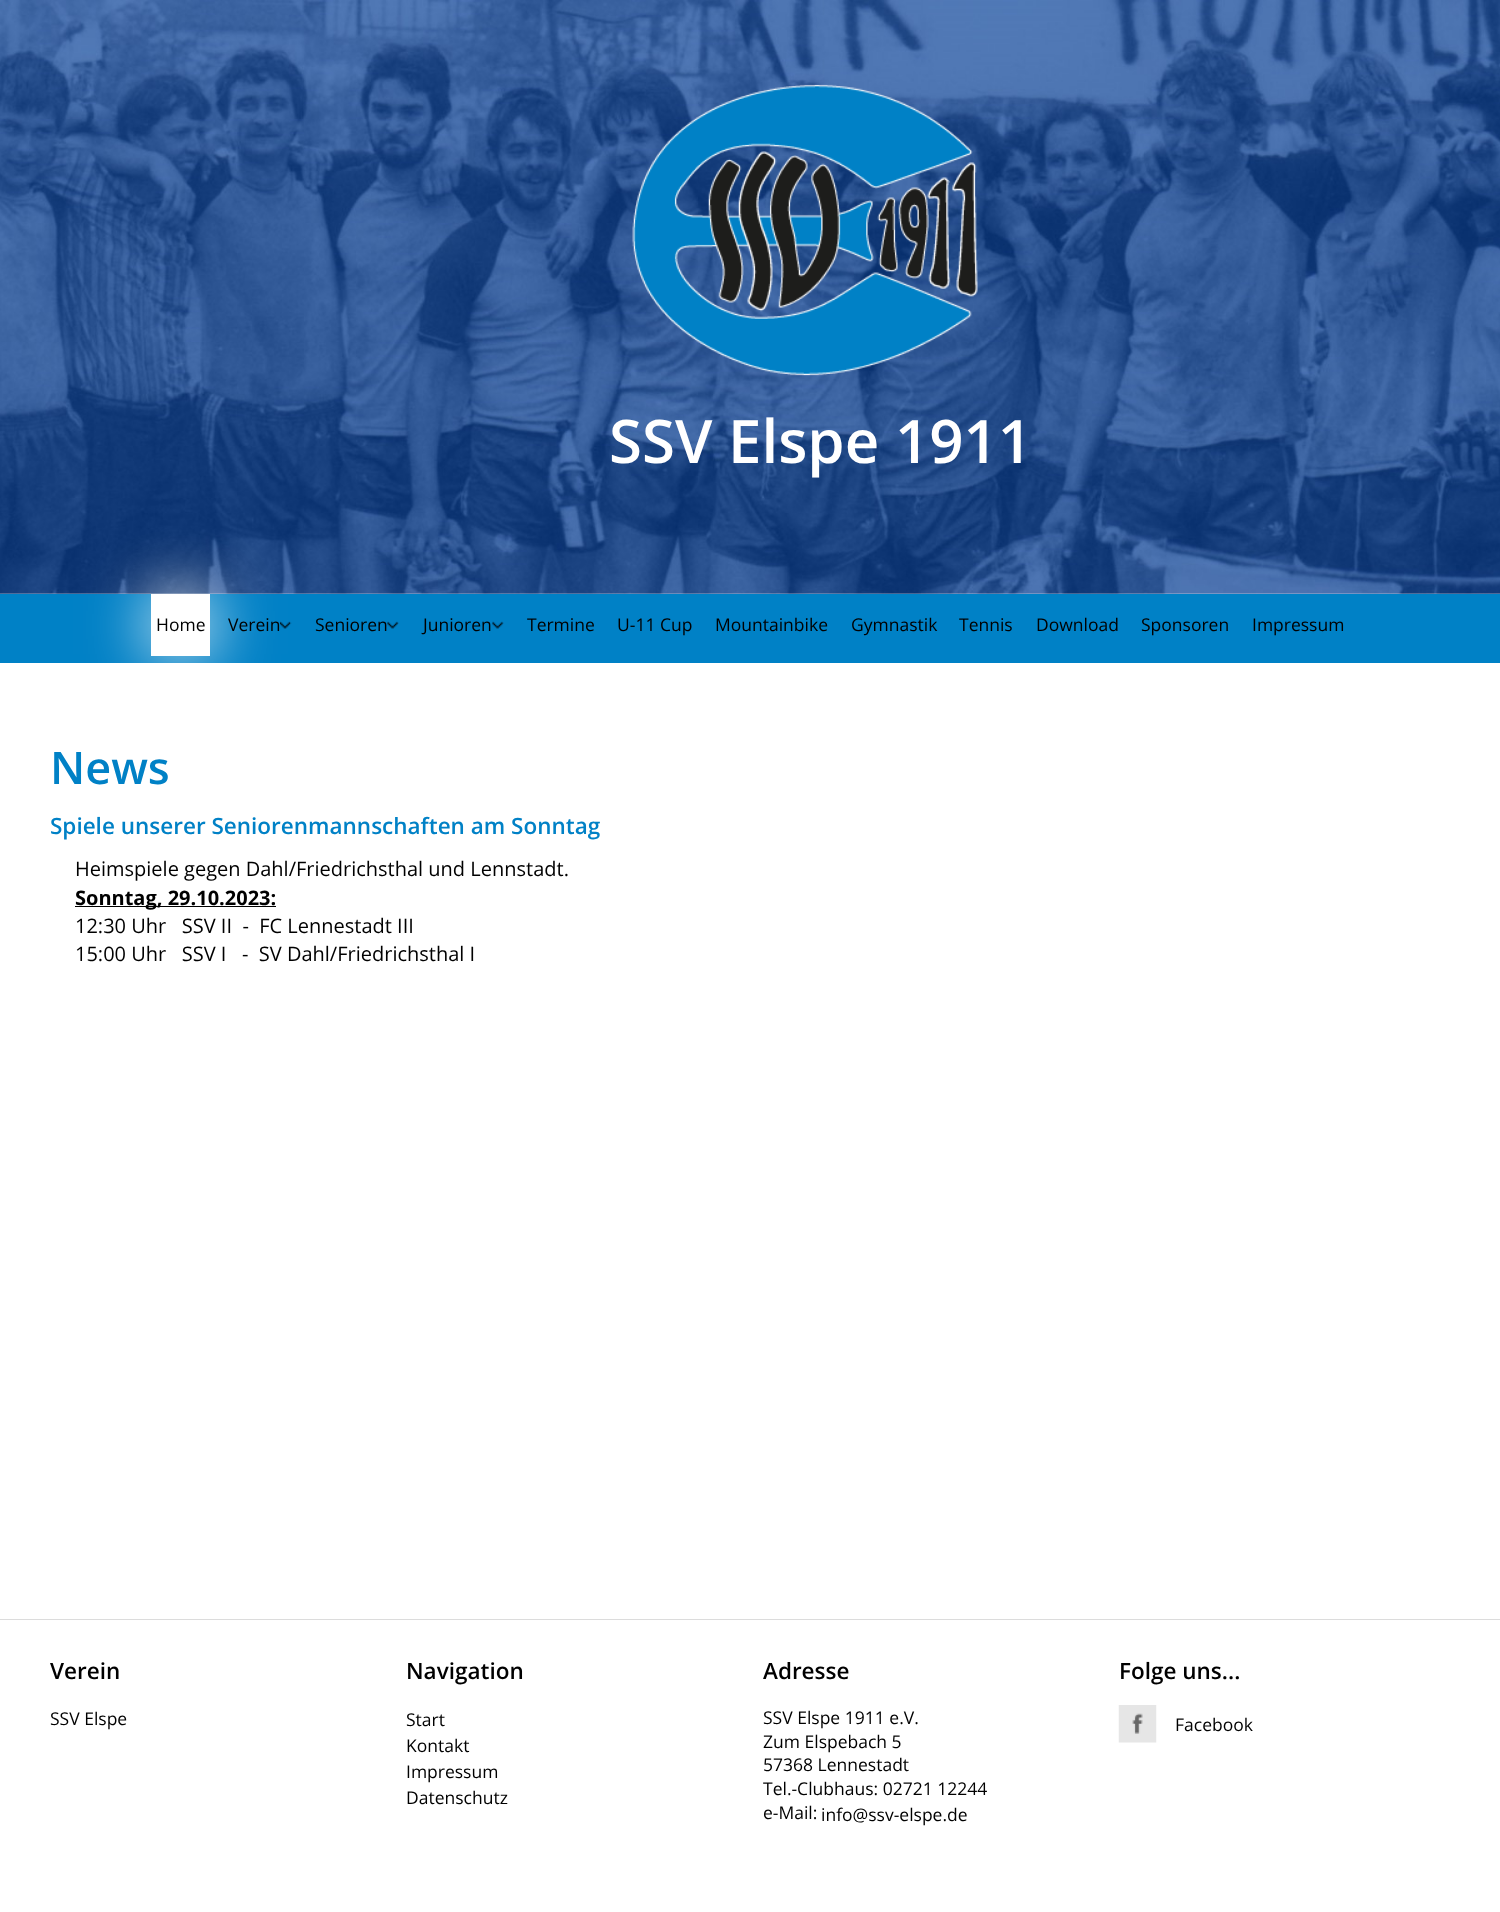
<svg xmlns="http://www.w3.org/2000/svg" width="1500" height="1912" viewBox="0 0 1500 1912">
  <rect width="100%" height="100%" fill="#fff"/>
  <image x="0" y="0" width="1500" height="594" href="img/1.png"/>
  <image x="632" y="84" width="346" height="292" href="img/2.png"/>
  <path d="M0 594h1500v69H0z" fill="#0081c6"/>
  <path d="M151 594h59v62H151z" fill="#fff" filter="blur(32.5px)"/>
  <path d="M151 594h59v62H151z" fill="#fff"/>
  <image x="280" y="621" width="12" height="8" href="img/3.png"/>
  <image x="387" y="621" width="12" height="8" href="img/4.png"/>
  <image x="492" y="621" width="12" height="8" href="img/5.png"/>
  <path d="M75 906h201v1H75z" fill="#000"/>
  <path d="M0 1619h1500v1H0z" fill="#dcdcdc"/>
  <image x="1118" y="1705" width="39" height="38" href="img/6.png"/>
  <text x="609" y="463" font-family="Open Sans" font-size="60" font-weight="600" fill="#fff">SSV Elspe 1911</text>
  <g font-family="Open Sans" font-size="17.5" fill="#000">
    <text x="156" y="631">Home</text>
    <text x="228" y="631">Verein</text>
    <text x="315" y="631">Senioren</text>
    <text x="423" y="631">Junioren</text>
    <text x="527" y="631">Termine</text>
    <text x="617" y="631">U-11 Cup</text>
    <text x="715" y="631">Mountainbike</text>
    <text x="851" y="631">Gymnastik</text>
    <text x="959" y="631">Tennis</text>
    <text x="1036" y="631">Download</text>
    <text x="1141" y="631">Sponsoren</text>
    <text x="1252" y="631">Impressum</text>
  </g>
  <text x="50" y="784" font-family="Open Sans" font-size="45" font-weight="600" fill="#0081c6">News</text>
  <text x="50" y="834" font-family="Open Sans" font-size="22.5" font-weight="600" fill="#0081c6">Spiele unserer Seniorenmannschaften am Sonntag</text>
  <text x="75" y="876" font-family="Open Sans" font-size="20" fill="#000">Heimspiele gegen Dahl/Friedrichsthal und Lennstadt.</text>
  <text x="75" y="905" font-family="Open Sans" font-size="20" font-weight="bold" fill="#000">Sonntag, 29.10.2023:</text>
  <g font-family="Open Sans" font-size="20" fill="#000">
    <text x="75" y="933" xml:space="preserve">12:30 Uhr   SSV II  -  FC Lennestadt III</text>
    <text x="75" y="961" xml:space="preserve">15:00 Uhr   SSV I   -  SV Dahl/Friedrichsthal I</text>
  </g>
  <text x="50" y="1679" font-family="Open Sans" font-size="22.5" font-weight="600" fill="#000">Verein</text>
  <text x="50" y="1725" font-family="Open Sans" font-size="17.5" fill="#000">SSV Elspe</text>
  <text x="406" y="1679" font-family="Open Sans" font-size="22.5" font-weight="600" fill="#000">Navigation</text>
  <g font-family="Open Sans" font-size="17.5" fill="#000">
    <text x="406" y="1726">Start</text>
    <text x="406" y="1752">Kontakt</text>
    <text x="406" y="1778">Impressum</text>
    <text x="406" y="1804">Datenschutz</text>
  </g>
  <text x="763" y="1679" font-family="Open Sans" font-size="22.5" font-weight="600" fill="#000">Adresse</text>
  <g font-family="Open Sans" font-size="17.5" fill="#000">
    <text x="763" y="1724">SSV Elspe 1911 e.V.</text>
    <text x="763" y="1748">Zum Elspebach 5</text>
    <text x="763" y="1771">57368 Lennestadt</text>
    <text x="763" y="1795">Tel.-Clubhaus: 02721 12244</text>
    <text x="763" y="1819">e-Mail:</text>
    <text x="821" y="1821">info@ssv-elspe.de</text>
  </g>
  <text x="1119" y="1679" font-family="Open Sans" font-size="22.5" font-weight="600" fill="#000">Folge uns...</text>
  <text x="1175" y="1731" font-family="Open Sans" font-size="17.5" fill="#000">Facebook</text>
</svg>
